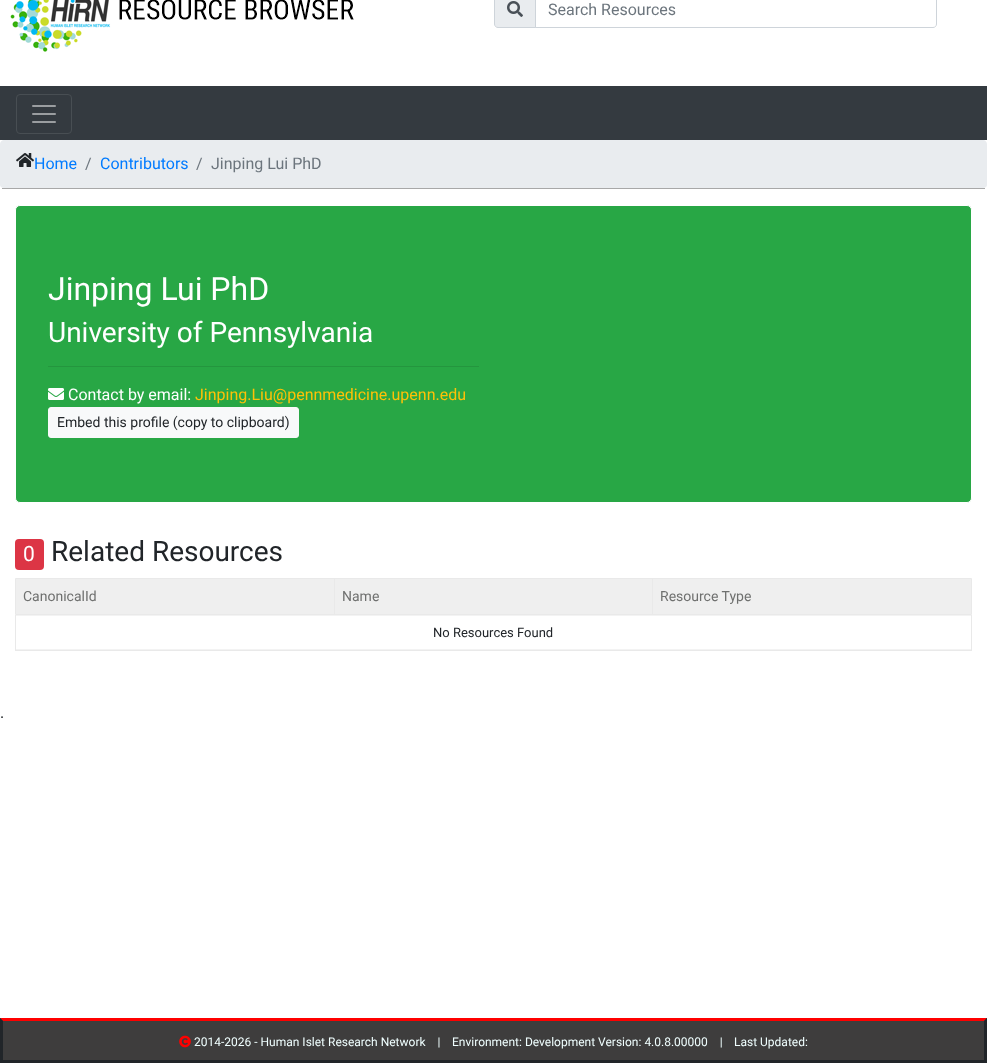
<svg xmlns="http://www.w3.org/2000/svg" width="987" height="1063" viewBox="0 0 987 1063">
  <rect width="100%" height="100%" fill="#fff"/>
  <image x="10" y="0" width="344" height="52" href="img/1.png"/>
  <path d="M498-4.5H535.5V27.5H498C496 27.5 494.5 26 494.5 24V-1C494.5-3 496-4.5 498-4.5Z" fill="#e9ecef" stroke="#ced4da"/>
  <image x="507" y="1" width="16" height="16" href="img/2.png"/>
  <path d="M535.5-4.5H933C935-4.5 936.5-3 936.5-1V24C936.5 26 935 27.5 933 27.5H535.5Z" fill="none" stroke="#ced4da"/>
  <path d="M0 86h987v54H0z" fill="#343a40"/>
  <rect x="16.5" y="94.5" width="55" height="39" rx="3.5" fill="none" stroke="#484e53"/>
  <image x="32" y="105" width="24" height="18" href="img/3.png"/>
  <path d="M4 140H983C985 140 987 142 987 144V185C987 187 985 188 983 188H4C2 188 0 187 0 185V144C0 142 2 140 4 140Z" fill="#e9ecef"/>
  <path d="M2 188h983v1H2z" fill="#a8a8a8"/>
  <image x="16" y="153" width="18" height="14" href="img/4.png"/>
  <rect x="15.5" y="205.5" width="956" height="297" rx="4.5" fill="#28a745" stroke="#fff"/>
  <path d="M48 366h431v1H48z" fill="#24963e"/>
  <image x="48" y="388" width="16" height="12" href="img/5.png"/>
  <rect x="48.5" y="407.5" width="250" height="30" rx="2.5" fill="#f8f9fa" stroke="#f8f9fa"/>
  <rect x="15" y="539" width="29" height="31" rx="4" fill="#dc3545"/>
  <path d="M15.5 578.5h956v36H15.5z" fill="none" stroke="#e9e9e9"/>
  <path d="M16 579h318v35H16z" fill="#efefef"/>
  <path d="M335 579h317v35H335z" fill="#efefef"/>
  <path d="M334 579h1v35H334z" fill="#e9e9e9"/>
  <path d="M653 579h318v35H653z" fill="#efefef"/>
  <path d="M652 579h1v35H652z" fill="#e9e9e9"/>
  <path d="M971 615h1v36H971z" fill="#e9e9e9"/>
  <path d="M15 650h957v1H15z" fill="#e9e9e9"/>
  <path d="M15 615h1v36H15z" fill="#e9e9e9"/>
  <path d="M16 615h955v1H16z" fill="#f3f3f3"/>
  <path d="M16 649h955v1H16z" fill="#f3f3f3"/>
  <path d="M0 1018h987v42H0z" fill="#3e3d3d"/>
  <path d="M0 1018H987L984 1021H3Z" fill="#f00"/>
  <path d="M987 1018V1063L984 1060V1021Z" fill="#212529"/>
  <path d="M0 1060h987v3H0z" fill="#212529"/>
  <path d="M0 1063V1018L3 1021V1060Z" fill="#212529"/>
  <image x="179" y="1035" width="12" height="13" href="img/6.png"/>
  <text x="548" y="15" font-family="Roboto" font-size="16" fill="#6c757d">Search Resources</text>
  <text x="34" y="169" font-family="Roboto" font-size="16" fill="#007bff">Home</text>
  <text x="85" y="169" font-family="Roboto" font-size="16" fill="#6c757d">/</text>
  <text x="100" y="169" font-family="Roboto" font-size="16" fill="#007bff">Contributors</text>
  <g font-family="Roboto" font-size="16" fill="#6c757d">
    <text x="196" y="169">/</text>
    <text x="211" y="169">Jinping Lui PhD</text>
  </g>
  <text x="48" y="300" font-family="Roboto" font-size="32" fill="#fff">Jinping Lui PhD</text>
  <text x="48" y="342" font-family="Roboto" font-size="28" fill="#fff">University of Pennsylvania</text>
  <text x="68" y="400" font-family="Roboto" font-size="16" fill="#fff">Contact by email:</text>
  <text x="195" y="400" font-family="Roboto" font-size="16" fill="#ffc107">Jinping.Liu@pennmedicine.upenn.edu</text>
  <text x="57" y="427" font-family="Roboto" font-size="14" fill="#212529">Embed this profile (copy to clipboard)</text>
  <text x="23" y="561" font-family="Roboto" font-size="21" fill="#fff">0</text>
  <text x="51" y="561" font-family="Roboto" font-size="28" fill="#212529">Related Resources</text>
  <g font-family="Roboto" font-size="14" fill="#6f706f">
    <text x="23" y="601">CanonicalId</text>
    <text x="342" y="601">Name</text>
    <text x="660" y="601">Resource Type</text>
  </g>
  <text x="433" y="637" font-family="Roboto" font-size="13" fill="#212529">No Resources Found</text>
  <text x="0" y="718" font-family="Roboto" font-size="16" fill="#212529">.</text>
  <g font-family="Roboto" font-size="12" fill="#f0ffff">
    <text x="194" y="1046" xml:space="preserve">2014-2026 - Human Islet Research Network    |</text>
    <text x="452" y="1046" xml:space="preserve">Environment: Development Version: 4.0.8.00000    |</text>
    <text x="734" y="1046">Last Updated:</text>
  </g>
</svg>
